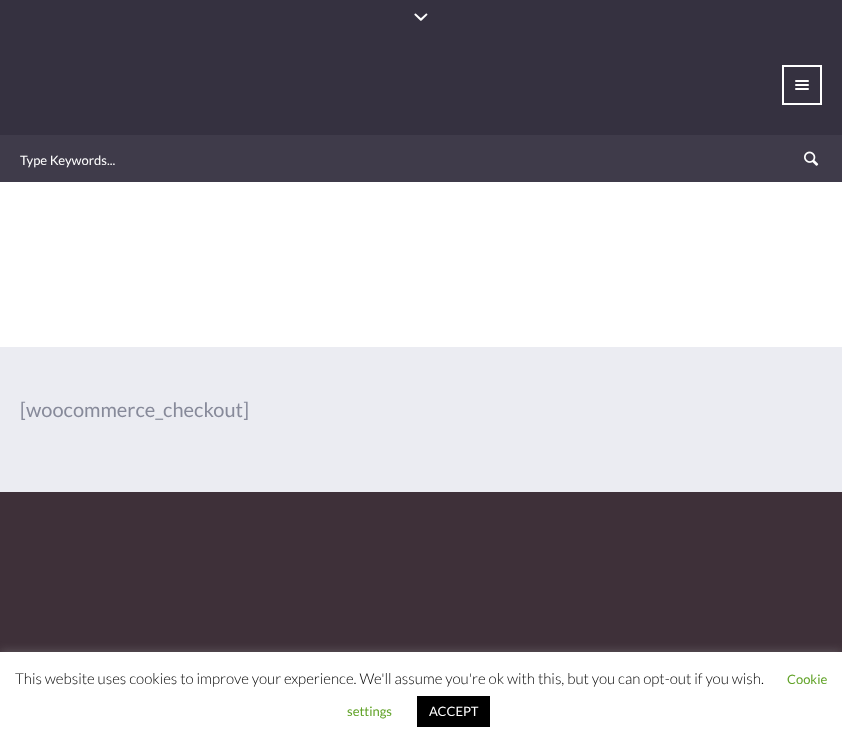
<svg xmlns="http://www.w3.org/2000/svg" width="842" height="744" viewBox="0 0 842 744">
  <rect width="100%" height="100%" fill="#3e3039"/>
  <path d="M0 0h842v135H0z" fill="#353140"/>
  <image x="414" y="13" width="14" height="8" href="img/1.png"/>
  <path d="M783 66h38v38H783z" fill="none" stroke="#fff" stroke-width="2"/>
  <image x="795" y="80" width="14" height="10" href="img/2.png"/>
  <path d="M0 135h842v47H0z" fill="#3f3b4a"/>
  <image x="804" y="151" width="15" height="15" href="img/3.png"/>
  <path d="M0 182h842v165H0z" fill="#fff"/>
  <path d="M0 347h842v145H0z" fill="#ebecf2"/>
  <path d="M0 651h842v92H0z" fill="#acabab4d" filter="blur(5px)"/>
  <path d="M0 652h842v92H0z" fill="#fff"/>
  <path d="M417 696h73v31H417z" fill="#000"/>
  <text x="20" y="165" font-family="Lato" font-size="13" fill="#fff">Type Keywords...</text>
  <text x="20" y="417" font-family="Lato" font-size="20" fill="#878a9a">[woocommerce_checkout]</text>
  <text x="15" y="684" font-family="Lato" font-size="15" font-weight="300" fill="#000">This website uses cookies to improve your experience. We'll assume you're ok with this, but you can opt-out if you wish.</text>
  <g font-family="Lato" font-size="13" fill="#62a329">
    <text x="787" y="684">Cookie</text>
    <text x="347" y="716">settings</text>
  </g>
  <text x="429" y="716" font-family="Lato" font-size="13" fill="#fff">ACCEPT</text>
</svg>
